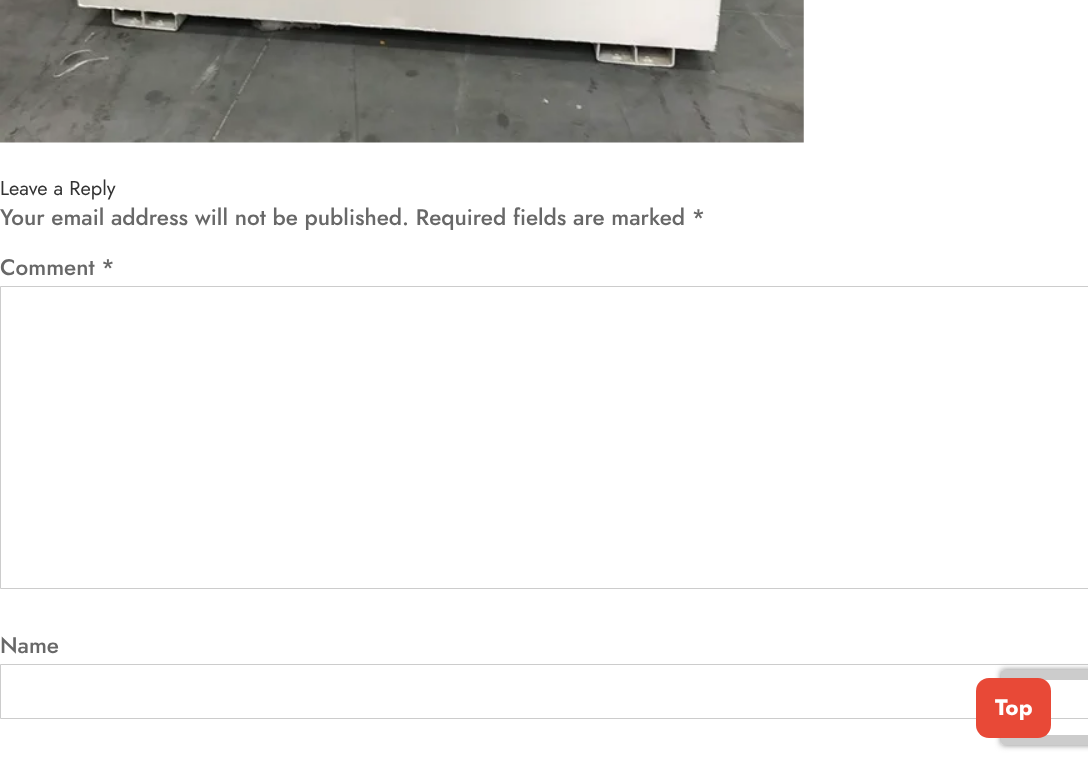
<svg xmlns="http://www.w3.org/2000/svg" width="1088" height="762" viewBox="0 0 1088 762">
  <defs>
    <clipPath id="clip1"><path d="M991 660H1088V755H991ZM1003.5 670H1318.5C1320 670 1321 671 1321 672.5V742.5C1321 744 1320 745 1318.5 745H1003.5C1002 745 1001 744 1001 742.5V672.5C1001 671 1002 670 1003.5 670Z" clip-rule="evenodd"/></clipPath>
  </defs>
  <rect width="100%" height="100%" fill="#fff"/>
  <image x="0" y="0" width="804" height="143" href="img/1.png"/>
  <path d="M0.5 286.5h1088v302H0.5z" fill="none" stroke="#ccc"/>
  <path d="M0.5 664.5h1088v54H0.5z" fill="none" stroke="#ccc"/>
  <g clip-path="url(#clip1)">
    <rect x="1001" y="670" width="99" height="75" rx="2.5" fill="#808080" filter="blur(3px)"/>
  </g>
  <path d="M1004 670C1002 670 1001 671 1001 672V742C1001 744 1002 745 1004 745H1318C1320 745 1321 744 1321 742V672C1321 671 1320 670 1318 670ZM1011 680V735H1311V680Z" fill="#ccc" fill-rule="evenodd"/>
  <rect x="976" y="678" width="75" height="60" rx="13" fill="#e84937"/>
  <text x="0" y="195" font-family="Jost" font-size="20" fill="#333">Leave a Reply</text>
  <g font-family="Jost" font-size="22.5" font-weight="500" fill="#686868">
    <text x="0" y="225">Your email address will not be published. Required fields are marked *</text>
    <text x="0" y="275">Comment *</text>
    <text x="0" y="653">Name</text>
  </g>
  <text x="995" y="715" font-family="Jost" font-size="22.5" font-weight="bold" fill="#fff">Top</text>
</svg>
